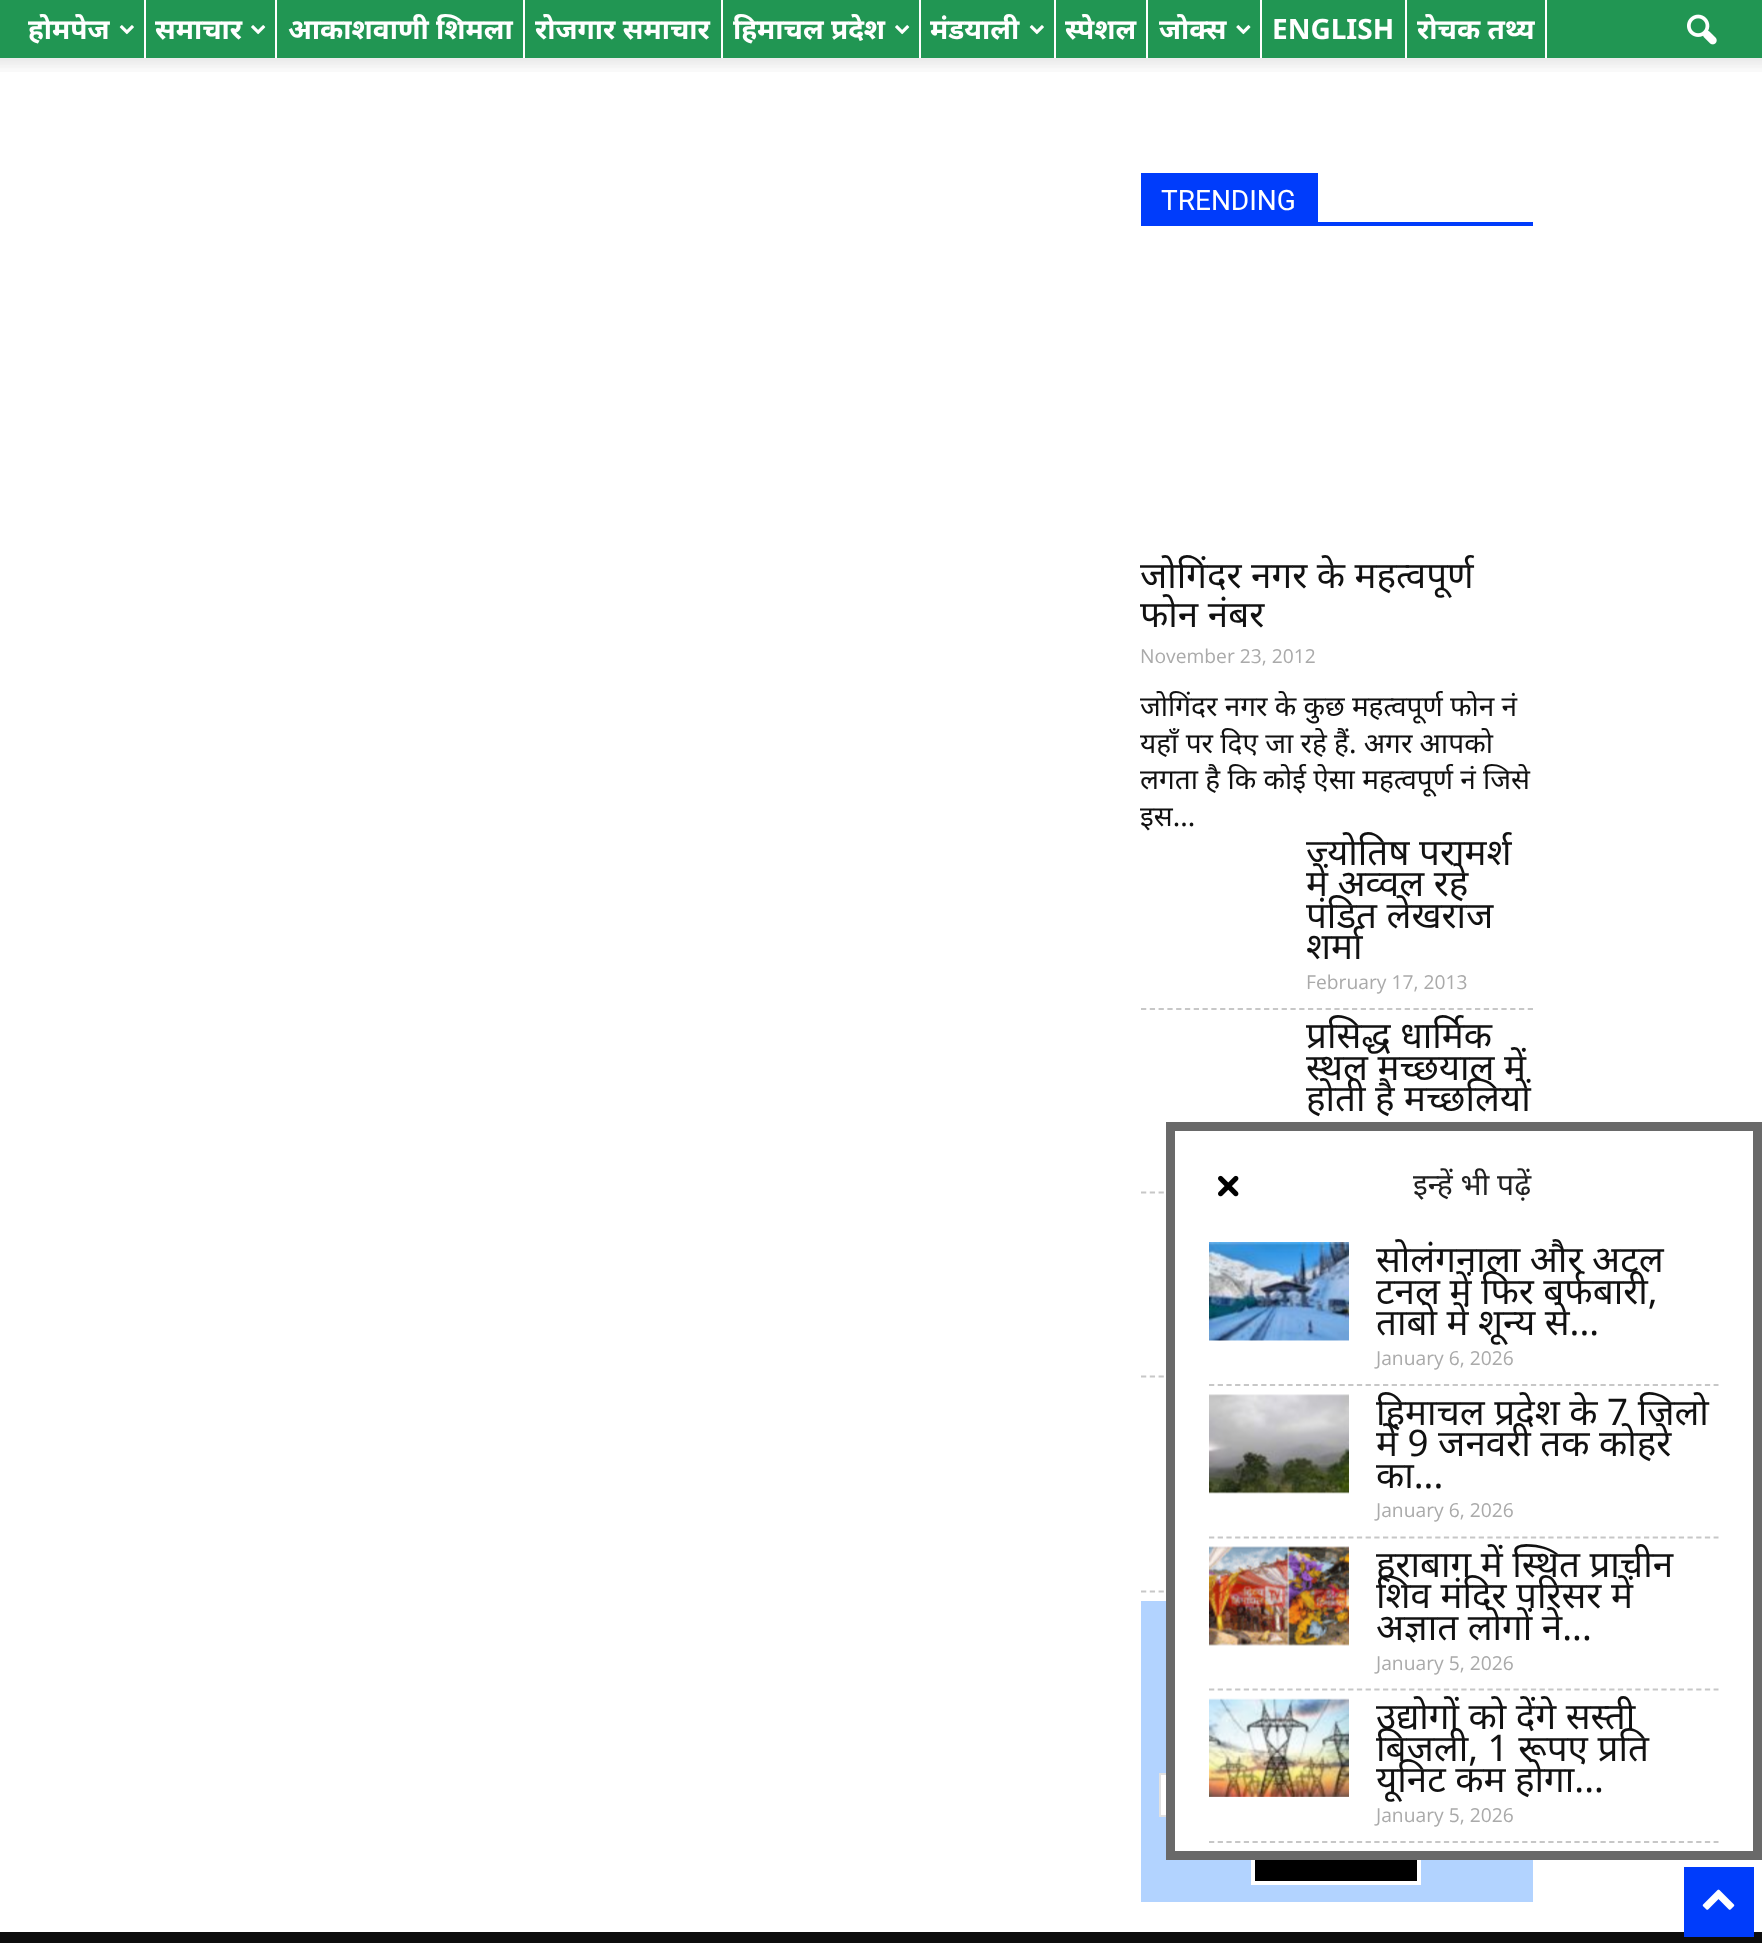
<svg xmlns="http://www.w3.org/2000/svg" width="1762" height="1943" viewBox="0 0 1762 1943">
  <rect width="100%" height="100%" fill="#fff"/>
  <path d="M0 0h1762v58H0z" fill="#219653"/>
  <path d="M144 0h2v58H144z" fill="#fff"/>
  <image x="119" y="25" width="15" height="10" href="img/1.png"/>
  <path d="M275 0h2v58H275z" fill="#fff"/>
  <image x="251" y="25" width="15" height="10" href="img/2.png"/>
  <path d="M523 0h2v58H523z" fill="#fff"/>
  <path d="M721 0h2v58H721z" fill="#fff"/>
  <path d="M919 0h2v58H919z" fill="#fff"/>
  <image x="895" y="25" width="15" height="10" href="img/2.png"/>
  <path d="M1054 0h2v58H1054z" fill="#fff"/>
  <image x="1029" y="25" width="15" height="10" href="img/1.png"/>
  <path d="M1146 0h2v58H1146z" fill="#fff"/>
  <path d="M1260 0h2v58H1260z" fill="#fff"/>
  <image x="1236" y="25" width="15" height="10" href="img/3.png"/>
  <path d="M1405 0h2v58H1405z" fill="#fff"/>
  <path d="M1545 0h2v58H1545z" fill="#fff"/>
  <image x="1687" y="14" width="30" height="31" href="img/4.png"/>
  <image x="0" y="58" width="1762" height="14" href="img/5.png"/>
  <path d="M1141 222h392v4H1141z" fill="#003cfb"/>
  <path d="M1141 173h177v49H1141z" fill="#003cfb"/>
  <path d="M1141 1009H1533" fill="none" stroke="#c7c7c7" stroke-width="1.8" stroke-dasharray="5.25 3.54"/>
  <path d="M1141 1192.5H1533" fill="none" stroke="#c7c7c7" stroke-width="1.8" stroke-dasharray="5.25 3.54"/>
  <path d="M1141 1376.5H1533" fill="none" stroke="#c7c7c7" stroke-width="1.8" stroke-dasharray="5.25 3.54"/>
  <path d="M1141 1591.5H1533" fill="none" stroke="#c7c7c7" stroke-width="1.8" stroke-dasharray="5.25 3.54"/>
  <path d="M1141 1601h392v301H1141z" fill="#b2d3ff"/>
  <path d="M1161 1775h5v40H1161z" fill="#fff"/>
  <path d="M1160 1774h355v42H1160z" fill="none" stroke="#e1e1e1" stroke-width="2"/>
  <path d="M1255 1860h162v21H1255z" fill="#000"/>
  <path d="M1253 1836h166v47H1253z" fill="none" stroke="#fff" stroke-width="4"/>
  <path d="M0 1932h1762v11H0z" fill="#0d0d0d"/>
  <path d="M1175 1191h358v660H1175z" fill="#fff"/>
  <path d="M1170.5 1126.5h587v729H1170.5z" fill="none" stroke="#696969" stroke-width="9"/>
  <image x="1218" y="1175" width="21" height="22" href="img/6.png"/>
  <path d="M1209 1385H1718.5" fill="none" stroke="#c7c7c7" stroke-width="1.8" stroke-dasharray="5.25 3.45"/>
  <image x="1209" y="1242" width="140" height="99" href="img/7.png"/>
  <path d="M1209 1537.5H1718.5" fill="none" stroke="#c7c7c7" stroke-width="1.8" stroke-dasharray="5.25 3.45"/>
  <image x="1209" y="1394" width="140" height="100" href="img/8.png"/>
  <path d="M1209 1689.5H1718.5" fill="none" stroke="#c7c7c7" stroke-width="1.8" stroke-dasharray="5.25 3.45"/>
  <image x="1209" y="1546" width="140" height="100" href="img/9.png"/>
  <path d="M1209 1842H1718.5" fill="none" stroke="#c7c7c7" stroke-width="1.8" stroke-dasharray="5.25 3.45"/>
  <image x="1209" y="1698" width="140" height="99" href="img/10.png"/>
  <path d="M1684 1867h70v70H1684z" fill="#003cfb"/>
  <image x="1702" y="1889" width="33" height="21" href="img/11.png"/>
  <g font-family="Noto Sans" font-size="28" font-weight="bold" fill="#fff">
    <text x="28" y="39">होमपेज</text>
    <text x="155" y="39">समाचार</text>
    <text x="288" y="39">आकाशवाणी शिमला</text>
    <text x="535" y="39">रोजगार समाचार</text>
    <text x="733" y="39">हिमाचल प्रदेश</text>
    <text x="930" y="39">मंडयाली</text>
    <text x="1065" y="39">स्पेशल</text>
    <text x="1159" y="39">जोक्स</text>
    <text x="1272" y="39">ENGLISH</text>
    <text x="1417" y="39">रोचक तथ्य</text>
  </g>
  <text x="1161" y="210" font-family="Roboto" font-size="28" fill="#fff">TRENDING</text>
  <g font-family="Noto Sans" font-size="36.75" fill="#111">
    <text x="1140" y="588">जोगिंदर नगर के महत्वपूर्ण</text>
    <text x="1140" y="627">फोन नंबर</text>
  </g>
  <text x="1140" y="663" font-family="Open Sans" font-size="19.25" fill="#aaa">November 23, 2012</text>
  <g font-family="Noto Sans" font-size="28" fill="#111">
    <text x="1140" y="716">जोगिंदर नगर के कुछ महत्वपूर्ण फोन नं</text>
    <text x="1140" y="753">यहाँ पर दिए जा रहे हैं. अगर आपको</text>
    <text x="1140" y="789">लगता है कि कोई ऐसा महत्वपूर्ण नं जिसे</text>
    <text x="1140" y="826">इस...</text>
  </g>
  <g font-family="Noto Sans" font-size="36.75" fill="#111">
    <text x="1306" y="865">ज्योतिष परामर्श</text>
    <text x="1306" y="896">में अव्वल रहे</text>
    <text x="1306" y="928">पंडित लेखराज</text>
    <text x="1306" y="959">शर्मा</text>
  </g>
  <text x="1306" y="989" font-family="Open Sans" font-size="19.25" fill="#aaa">February 17, 2013</text>
  <g font-family="Noto Sans" font-size="36.75" fill="#111">
    <text x="1306" y="1048">प्रसिद्ध धार्मिक</text>
    <text x="1306" y="1080">स्थल मच्छयाल में</text>
    <text x="1306" y="1111">होती है मच्छलियों</text>
  </g>
  <text x="1413" y="1195" font-family="'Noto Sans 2'" font-size="30" fill="#222">इन्हें भी पढ़ें</text>
  <g font-family="Noto Sans" font-size="36.75" fill="#111">
    <text x="1376" y="1272">सोलंगनाला और अटल</text>
    <text x="1376" y="1304">टनल में फिर बर्फबारी,</text>
    <text x="1376" y="1335">ताबो में शून्य से...</text>
  </g>
  <text x="1376" y="1365" font-family="Open Sans" font-size="19.25" fill="#aaa">January 6, 2026</text>
  <g font-family="Noto Sans" font-size="36.75" fill="#111">
    <text x="1376" y="1425">हिमाचल प्रदेश के 7 जिलो</text>
    <text x="1376" y="1456">में 9 जनवरी तक कोहरे</text>
    <text x="1376" y="1488">का...</text>
  </g>
  <text x="1376" y="1517" font-family="Open Sans" font-size="19.25" fill="#aaa">January 6, 2026</text>
  <g font-family="Noto Sans" font-size="36.75" fill="#111">
    <text x="1376" y="1577">हराबाग में स्थित प्राचीन</text>
    <text x="1376" y="1608">शिव मंदिर परिसर में</text>
    <text x="1376" y="1640">अज्ञात लोगों ने...</text>
  </g>
  <text x="1376" y="1670" font-family="Open Sans" font-size="19.25" fill="#aaa">January 5, 2026</text>
  <g font-family="Noto Sans" font-size="36.75" fill="#111">
    <text x="1376" y="1729">उद्योगों को देंगे सस्ती</text>
    <text x="1376" y="1761">बिजली, 1 रूपए प्रति</text>
    <text x="1376" y="1792">यूनिट कम होगा...</text>
  </g>
  <text x="1376" y="1822" font-family="Open Sans" font-size="19.25" fill="#aaa">January 5, 2026</text>
</svg>
